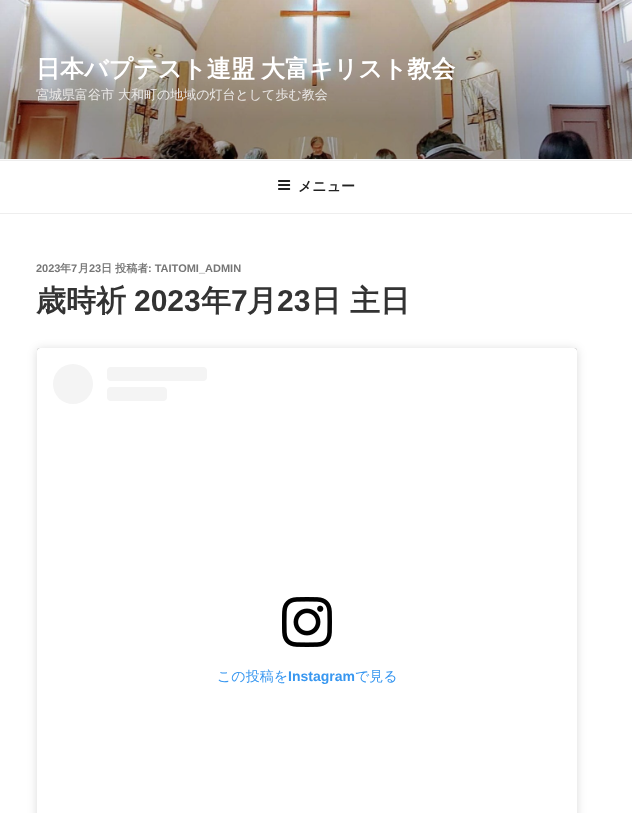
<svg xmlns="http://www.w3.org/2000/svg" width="632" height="813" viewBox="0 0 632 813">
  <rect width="100%" height="100%" fill="#fff"/>
  <path d="M0 159h632v1H0z" fill="#fafafa"/>
  <image x="0" y="0" width="632" height="159" href="img/1.png"/>
  <path d="M0 160h632v1H0z" fill="#eee"/>
  <path d="M0 213h632v1H0z" fill="#eee"/>
  <image x="278" y="180" width="13" height="10" href="img/2.png"/>
  <rect x="37" y="349" width="540" height="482" rx="3" fill="#00000026" filter="blur(5px)"/>
  <rect x="37" y="348" width="540" height="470" rx="3" fill="#00000080" filter="blur(0.5px)"/>
  <rect x="37" y="348" width="540" height="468" rx="3" fill="#fff"/>
  <circle cx="73" cy="384" r="20" fill="#f4f4f4"/>
  <rect x="107" y="367" width="100" height="14" rx="4" fill="#f4f4f4"/>
  <rect x="107" y="387" width="60" height="14" rx="4" fill="#f4f4f4"/>
  <image x="282" y="597" width="50" height="50" href="img/3.png"/>
  <text x="36" y="77" word-spacing="-1" font-family="WenQuanYi Zen Hei" font-size="24" font-weight="bold" fill="#fff">日本バプテスト連盟 大富キリスト教会</text>
  <text x="36" y="99" font-family="WenQuanYi Zen Hei" font-size="13" font-weight="500" fill="#eae8e6">宮城県富谷市 大和町の地域の灯台として歩む教会</text>
  <text x="298" y="191" font-family="WenQuanYi Zen Hei" font-size="14" font-weight="bold" fill="#222">メニュー</text>
  <text x="36" y="272" font-family="Liberation Sans" font-size="11" font-weight="bold" fill="#767676">2023</text>
  <text x="60" y="272" font-family="WenQuanYi Zen Hei" font-size="11" font-weight="bold" fill="#767676">年</text>
  <text x="71" y="272" font-family="Liberation Sans" font-size="11" font-weight="bold" fill="#767676">7</text>
  <text x="78" y="272" font-family="WenQuanYi Zen Hei" font-size="11" font-weight="bold" fill="#767676">月</text>
  <text x="89" y="272" font-family="Liberation Sans" font-size="11" font-weight="bold" fill="#767676">23</text>
  <text x="101" y="272" font-family="WenQuanYi Zen Hei" font-size="11" font-weight="bold" fill="#767676">日 投稿者</text>
  <text x="148" y="272" font-family="Liberation Sans" font-size="11" font-weight="bold" fill="#767676">: TAITOMI_ADMIN</text>
  <text x="36" y="311" font-family="WenQuanYi Zen Hei" font-size="30" font-weight="bold" fill="#333">歳時祈</text>
  <text x="134" y="311" font-family="Liberation Sans" font-size="30" font-weight="bold" fill="#333">2023</text>
  <text x="201" y="311" font-family="WenQuanYi Zen Hei" font-size="30" font-weight="bold" fill="#333">年</text>
  <text x="231" y="311" font-family="Liberation Sans" font-size="30" font-weight="bold" fill="#333">7</text>
  <text x="247" y="311" font-family="WenQuanYi Zen Hei" font-size="30" font-weight="bold" fill="#333">月</text>
  <text x="277" y="311" font-family="Liberation Sans" font-size="30" font-weight="bold" fill="#333">23</text>
  <text x="311" y="311" font-family="WenQuanYi Zen Hei" font-size="30" font-weight="bold" fill="#333">日 主日</text>
  <text x="217" y="681" font-family="WenQuanYi Zen Hei" font-size="14" font-weight="500" fill="#3897f0">この投稿を</text>
  <text x="288" y="681" font-family="Liberation Sans" font-size="14" font-weight="bold" fill="#3897f0">Instagram</text>
  <text x="355" y="681" font-family="WenQuanYi Zen Hei" font-size="14" font-weight="500" fill="#3897f0">で見る</text>
</svg>
